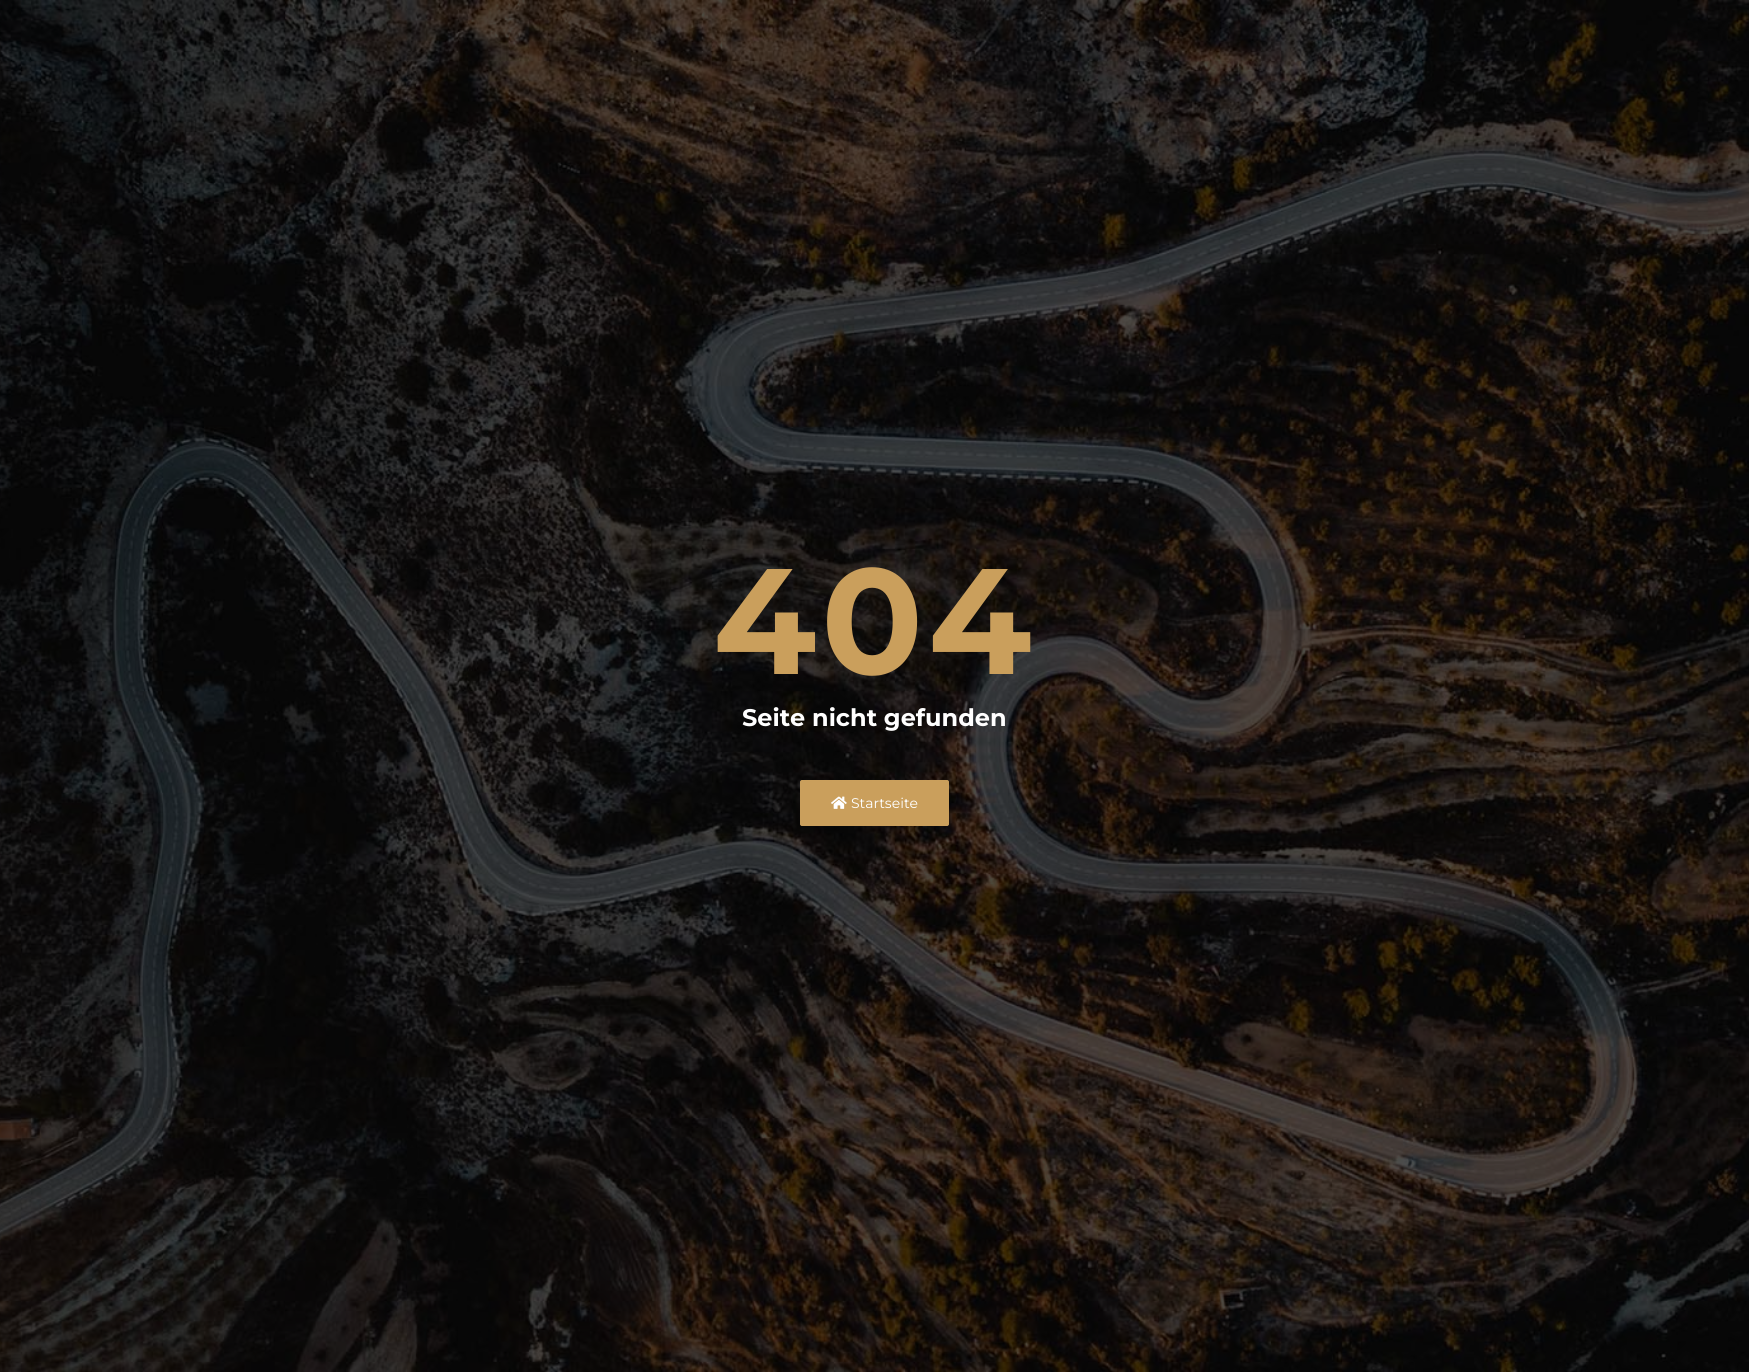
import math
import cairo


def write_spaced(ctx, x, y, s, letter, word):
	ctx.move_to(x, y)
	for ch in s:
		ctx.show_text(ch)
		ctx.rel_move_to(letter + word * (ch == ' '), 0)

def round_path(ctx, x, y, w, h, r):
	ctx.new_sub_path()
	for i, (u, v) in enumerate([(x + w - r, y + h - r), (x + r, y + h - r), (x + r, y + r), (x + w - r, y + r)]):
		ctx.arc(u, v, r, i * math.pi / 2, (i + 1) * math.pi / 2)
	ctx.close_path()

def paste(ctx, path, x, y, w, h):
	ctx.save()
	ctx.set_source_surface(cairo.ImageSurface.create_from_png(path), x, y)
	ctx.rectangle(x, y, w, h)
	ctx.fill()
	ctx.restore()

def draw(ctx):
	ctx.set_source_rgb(1, 1, 1)
	ctx.paint()
	paste(ctx, 'media/1.png', 0, 0, 1749, 1372)
	ctx.select_font_face('Montserrat', cairo.FONT_SLANT_NORMAL, cairo.FONT_WEIGHT_BOLD)
	ctx.set_font_size(150)
	ctx.set_source_rgb(0.792, 0.624, 0.361)
	write_spaced(ctx, 713, 674, '404', 5, 0)
	ctx.set_font_size(24)
	ctx.set_source_rgb(1, 1, 1)
	ctx.move_to(742, 726)
	ctx.show_text('Seite nicht gefunden')
	ctx.set_source_rgb(0.792, 0.624, 0.361)
	round_path(ctx, 800.5, 780.5, 148, 45, 1.5)
	ctx.fill_preserve()
	ctx.set_line_width(1)
	ctx.stroke()
	paste(ctx, 'media/2.png', 831, 796, 16, 13)
	ctx.select_font_face('Montserrat')
	ctx.set_font_size(14)
	ctx.set_source_rgb(1, 1, 1)
	ctx.move_to(851, 808)
	ctx.show_text('Startseite')


surface = cairo.ImageSurface(cairo.FORMAT_RGB24, 1749, 1372)
ctx = cairo.Context(surface)
options = cairo.FontOptions()
options.set_hint_metrics(cairo.HINT_METRICS_OFF)
options.set_hint_style(cairo.HINT_STYLE_NONE)
ctx.set_font_options(options)
ctx.set_miter_limit(4)
draw(ctx)
surface.write_to_png('image.png')
